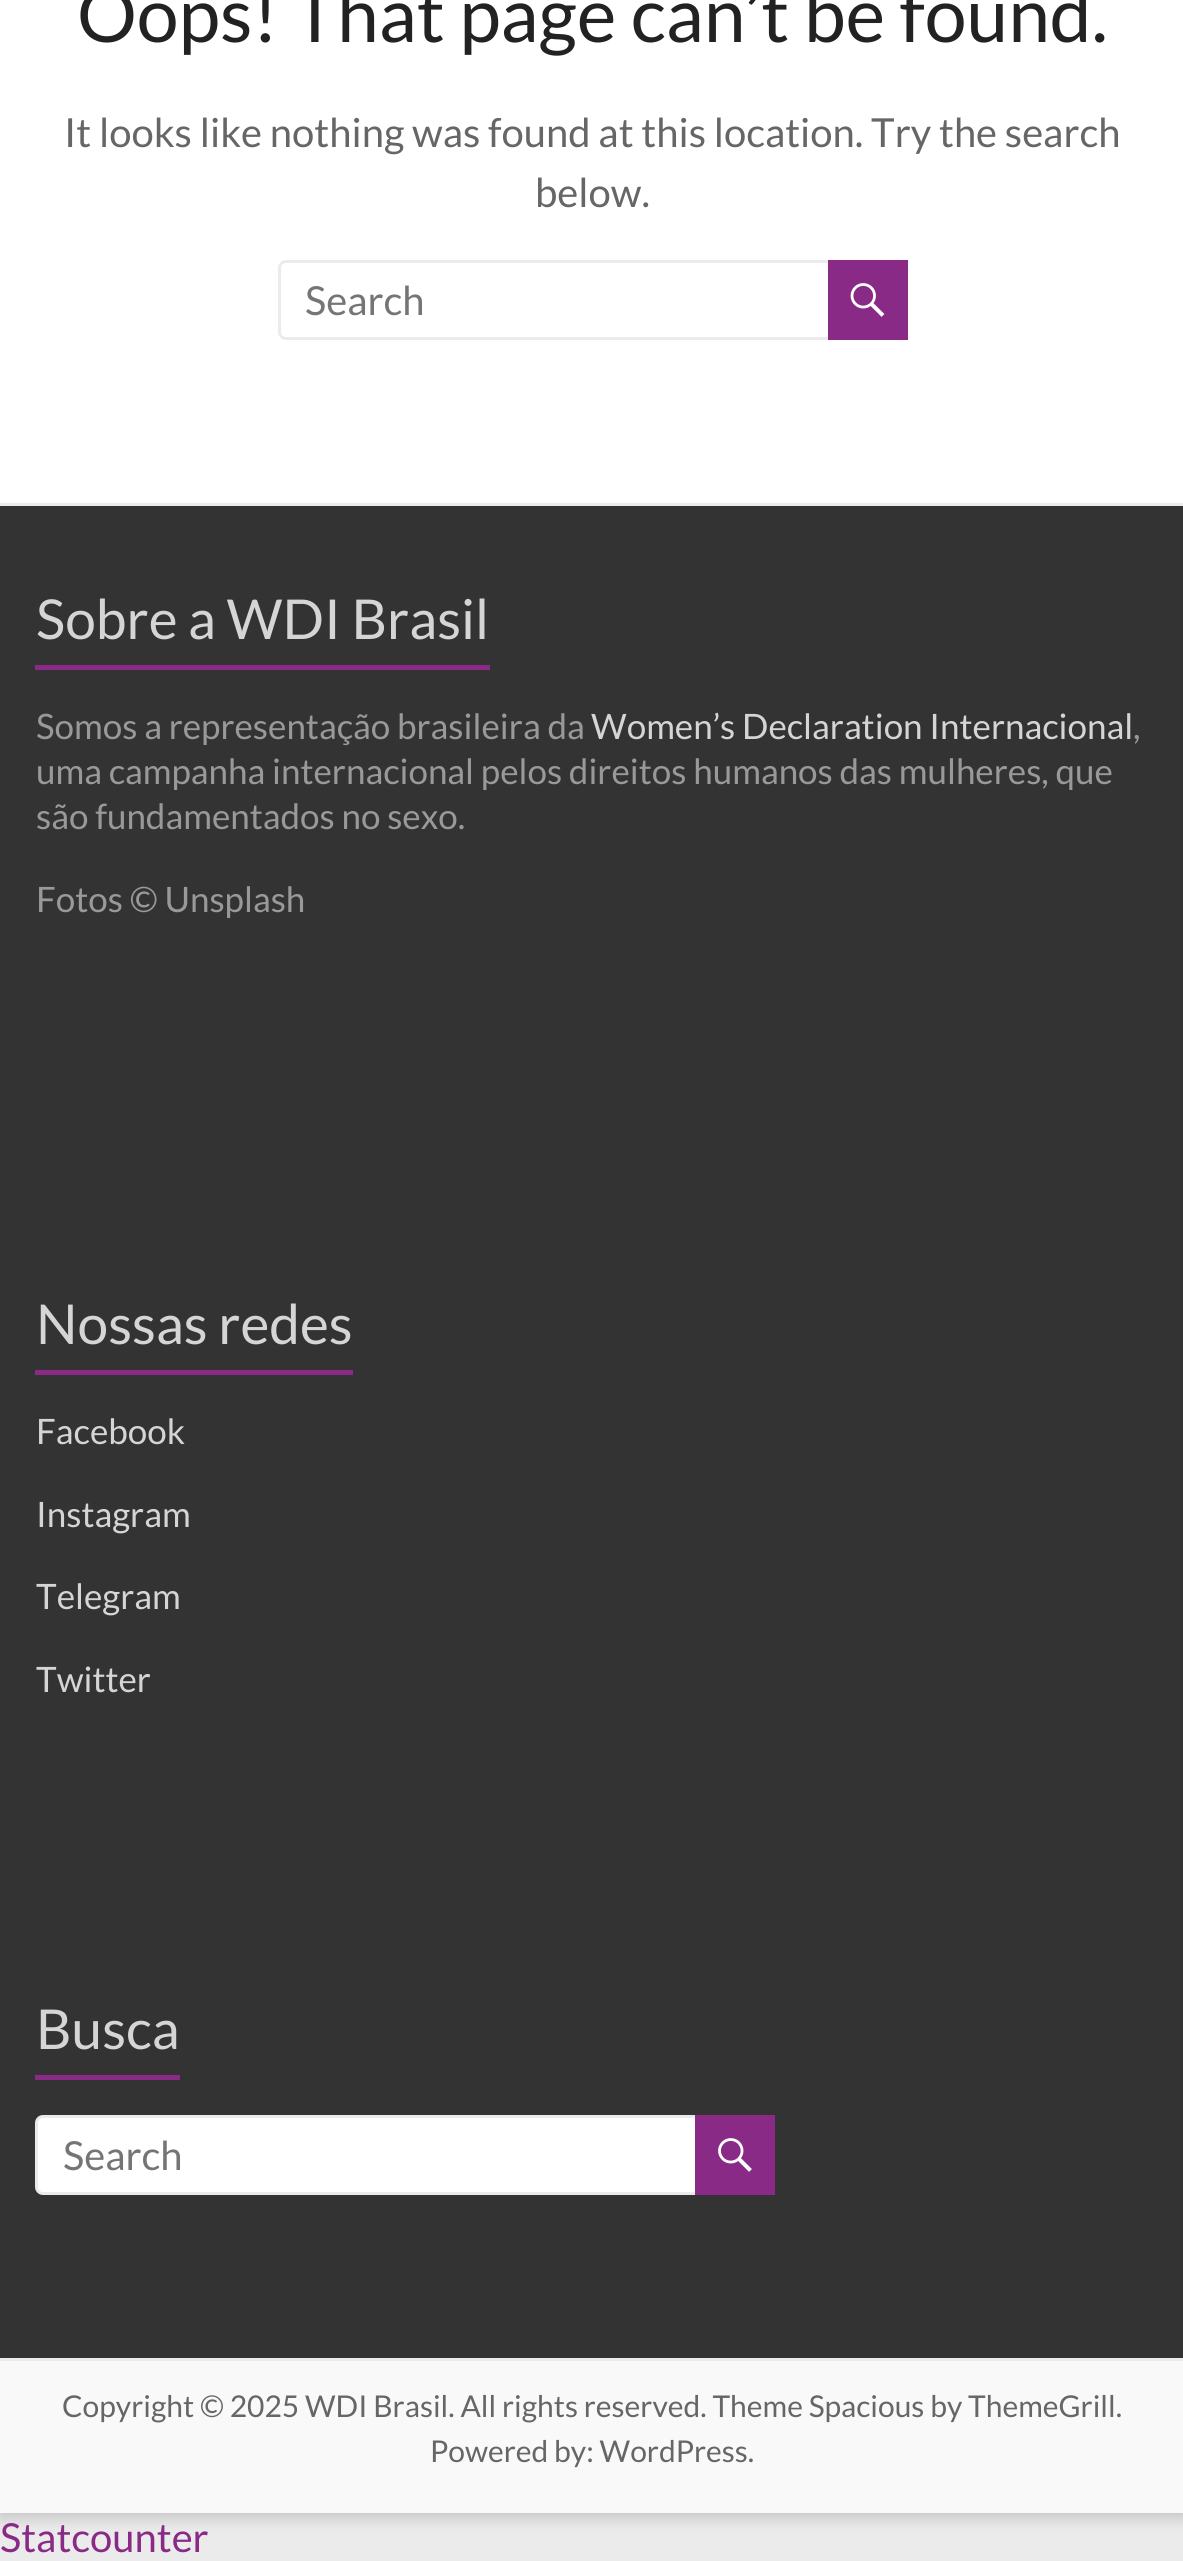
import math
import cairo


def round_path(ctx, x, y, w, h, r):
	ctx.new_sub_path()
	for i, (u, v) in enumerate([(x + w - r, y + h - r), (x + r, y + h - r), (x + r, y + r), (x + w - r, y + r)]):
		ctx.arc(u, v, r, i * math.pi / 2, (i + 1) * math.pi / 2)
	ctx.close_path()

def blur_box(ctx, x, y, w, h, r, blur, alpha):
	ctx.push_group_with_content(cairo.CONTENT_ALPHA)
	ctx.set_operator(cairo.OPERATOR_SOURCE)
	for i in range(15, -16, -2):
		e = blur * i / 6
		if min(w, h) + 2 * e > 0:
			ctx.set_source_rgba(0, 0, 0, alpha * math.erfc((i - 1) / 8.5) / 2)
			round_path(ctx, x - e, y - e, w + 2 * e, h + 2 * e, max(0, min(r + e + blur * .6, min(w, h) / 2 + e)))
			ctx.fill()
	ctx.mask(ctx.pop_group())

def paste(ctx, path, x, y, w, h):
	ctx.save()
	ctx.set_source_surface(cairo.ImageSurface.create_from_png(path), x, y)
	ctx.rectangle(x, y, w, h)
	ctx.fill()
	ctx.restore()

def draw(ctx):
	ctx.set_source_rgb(0.918, 0.918, 0.918)
	ctx.paint()
	ctx.set_source_rgb(0.392, 0.392, 0.392)
	blur_box(ctx, 0, -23, 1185, 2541, 0, 7.5, 0.3)
	ctx.set_source_rgb(1, 1, 1)
	ctx.rectangle(0, 0, 1183, 503)
	ctx.fill()
	ctx.select_font_face('Lato')
	ctx.set_font_size(75)
	ctx.set_source_rgb(0.133, 0.133, 0.133)
	ctx.move_to(77, 42)
	ctx.show_text('Oops! That page can’t be found.')
	ctx.set_font_size(40)
	ctx.set_source_rgb(0.4, 0.4, 0.4)
	ctx.move_to(64, 147)
	ctx.show_text('It looks like nothing was found at this location. Try the search')
	ctx.move_to(535, 207)
	ctx.show_text('below.')
	round_path(ctx, 279.5, 261.5, 554, 77, 6.5)
	ctx.set_source_rgb(0.918, 0.918, 0.918)
	ctx.set_line_width(3)
	ctx.stroke()
	ctx.set_source_rgb(0.459, 0.459, 0.459)
	ctx.move_to(305, 315)
	ctx.show_text('Search')
	ctx.set_source_rgb(0.533, 0.165, 0.525)
	ctx.rectangle(828, 260, 80, 80)
	ctx.fill()
	paste(ctx, 'media/1.png', 850, 283, 35, 34)
	ctx.set_source_rgb(0.2, 0.2, 0.2)
	ctx.rectangle(0, 506, 1183, 1852)
	ctx.fill()
	ctx.set_source_rgb(0.918, 0.918, 0.918)
	ctx.rectangle(0, 503, 1183, 3)
	ctx.fill()
	ctx.set_font_size(55)
	ctx.set_source_rgb(0.835, 0.835, 0.835)
	ctx.move_to(36, 639)
	ctx.show_text('Sobre a WDI Brasil')
	ctx.set_source_rgb(0.533, 0.165, 0.525)
	ctx.rectangle(35, 665, 455, 5)
	ctx.fill()
	ctx.set_font_size(35)
	ctx.set_source_rgb(0.6, 0.6, 0.6)
	ctx.move_to(36, 739)
	ctx.show_text('Somos a representação brasileira da')
	ctx.set_source_rgb(0.835, 0.835, 0.835)
	ctx.move_to(591, 739)
	ctx.show_text('Women’s Declaration Internacional')
	ctx.set_source_rgb(0.6, 0.6, 0.6)
	for x, y, s in [
		(1133, 739, ','),
		(36, 784, 'uma campanha internacional pelos direitos humanos das mulheres, que'),
		(36, 829, 'são fundamentados no sexo.'),
		(36, 912, 'Fotos © Unsplash'),
	]:
		ctx.move_to(x, y)
		ctx.show_text(s)
	ctx.set_font_size(55)
	ctx.set_source_rgb(0.835, 0.835, 0.835)
	ctx.move_to(36, 1344)
	ctx.show_text('Nossas redes')
	ctx.set_source_rgb(0.533, 0.165, 0.525)
	ctx.rectangle(35, 1370, 318, 5)
	ctx.fill()
	ctx.set_font_size(35)
	ctx.set_source_rgb(0.835, 0.835, 0.835)
	for x, y, s in [
		(36, 1444, 'Facebook'),
		(36, 1527, 'Instagram'),
		(36, 1609, 'Telegram'),
		(36, 1692, 'Twitter'),
	]:
		ctx.move_to(x, y)
		ctx.show_text(s)
	ctx.set_font_size(55)
	ctx.move_to(36, 2049)
	ctx.show_text('Busca')
	ctx.set_source_rgb(0.533, 0.165, 0.525)
	ctx.rectangle(35, 2075, 145, 5)
	ctx.fill()
	ctx.set_source_rgb(1, 1, 1)
	round_path(ctx, 36.5, 2116.5, 667, 77, 6.5)
	ctx.fill_preserve()
	ctx.set_source_rgb(0.918, 0.918, 0.918)
	ctx.stroke()
	ctx.set_font_size(40)
	ctx.set_source_rgb(0.459, 0.459, 0.459)
	ctx.move_to(63, 2170)
	ctx.show_text('Search')
	ctx.set_source_rgb(0.533, 0.165, 0.525)
	ctx.rectangle(695, 2115, 80, 80)
	ctx.fill()
	paste(ctx, 'media/2.png', 718, 2138, 34, 34)
	ctx.set_source_rgb(0.973, 0.973, 0.973)
	ctx.rectangle(0, 2361, 1183, 152)
	ctx.fill()
	ctx.set_source_rgb(0.918, 0.918, 0.918)
	ctx.rectangle(0, 2358, 1183, 3)
	ctx.fill()
	ctx.set_font_size(30)
	ctx.set_source_rgb(0.4, 0.4, 0.4)
	ctx.move_to(62, 2417)
	ctx.show_text('Copyright © 2025 WDI Brasil. All rights reserved. Theme Spacious by ThemeGrill.')
	ctx.move_to(430, 2462)
	ctx.show_text('Powered by: WordPress.')
	ctx.set_font_size(40)
	ctx.set_source_rgb(0.533, 0.165, 0.525)
	ctx.move_to(0, 2552)
	ctx.show_text('Statcounter')


surface = cairo.ImageSurface(cairo.FORMAT_RGB24, 1183, 2561)
ctx = cairo.Context(surface)
options = cairo.FontOptions()
options.set_hint_metrics(cairo.HINT_METRICS_OFF)
options.set_hint_style(cairo.HINT_STYLE_NONE)
ctx.set_font_options(options)
ctx.set_miter_limit(4)
draw(ctx)
surface.write_to_png('image.png')
